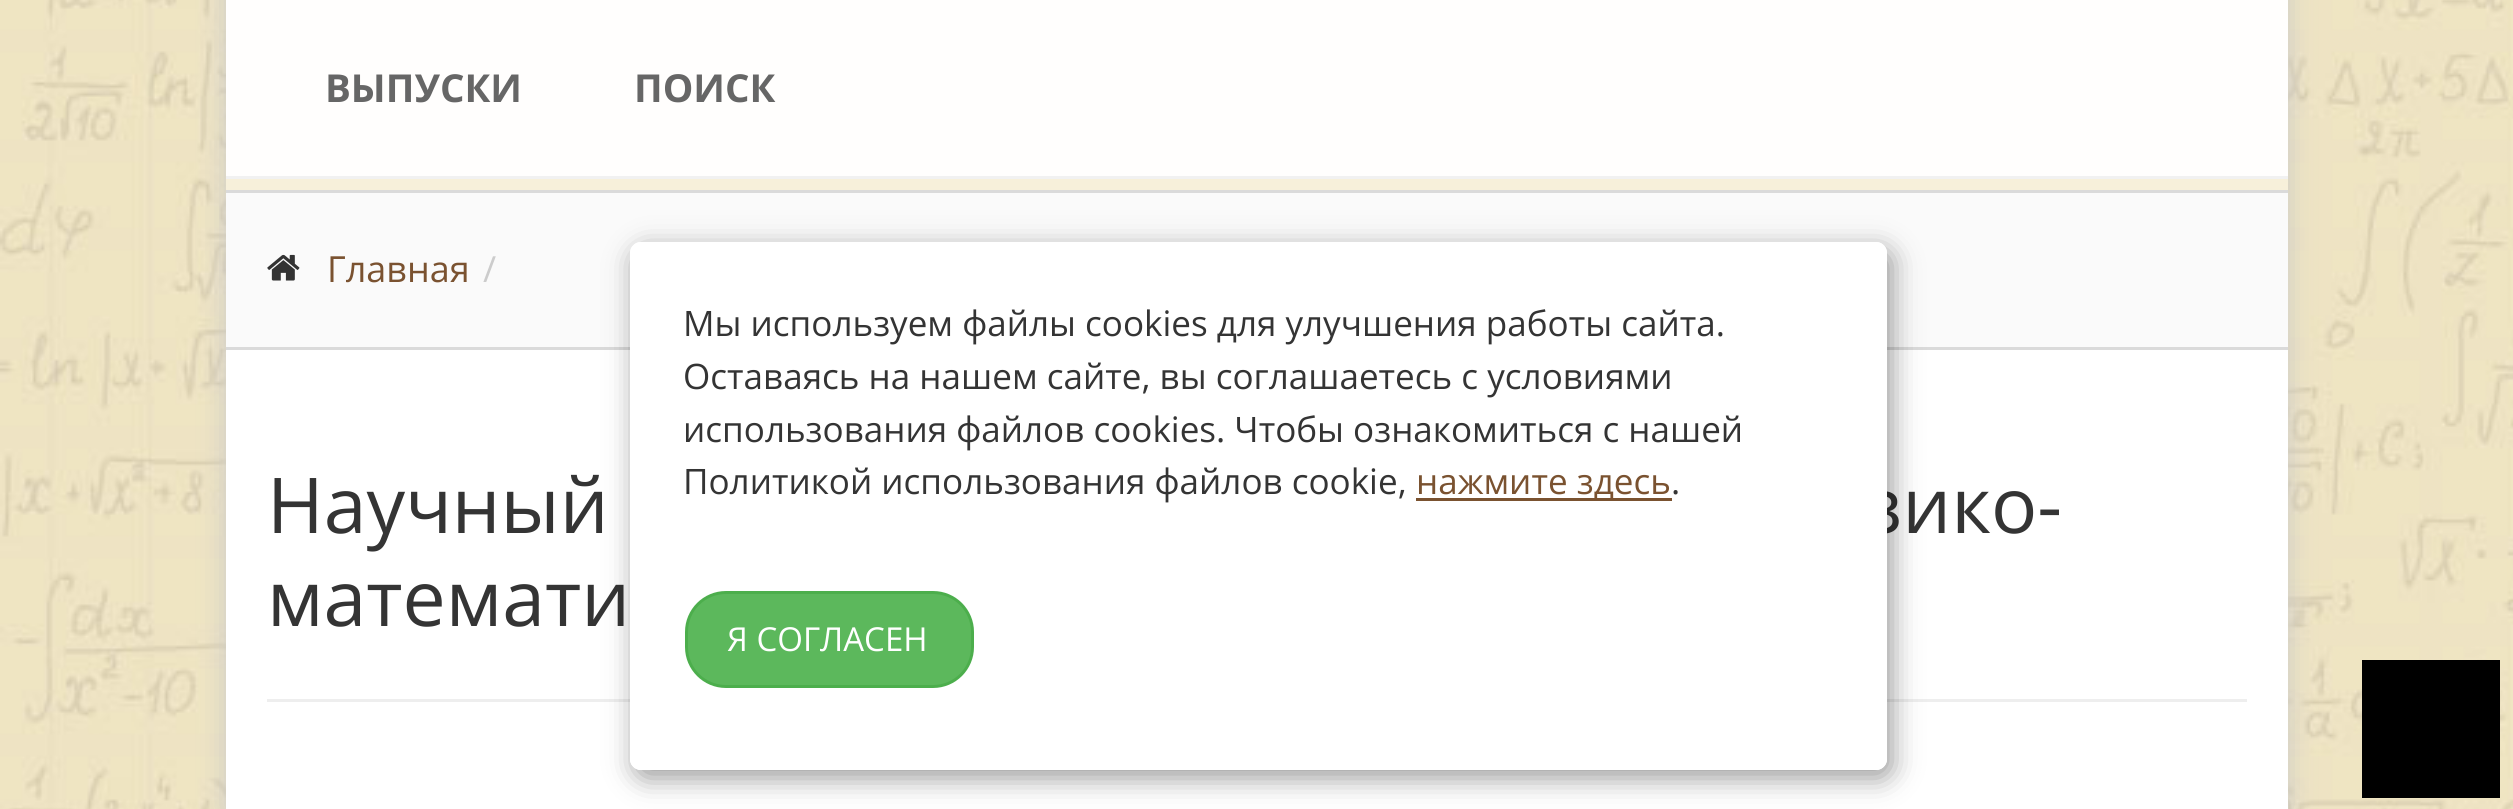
import math
import cairo


def round_path(ctx, x, y, w, h, r):
	ctx.new_sub_path()
	for i, (u, v) in enumerate([(x + w - r, y + h - r), (x + r, y + h - r), (x + r, y + r), (x + w - r, y + r)]):
		ctx.arc(u, v, r, i * math.pi / 2, (i + 1) * math.pi / 2)
	ctx.close_path()

def blur_box(ctx, x, y, w, h, r, blur, alpha):
	ctx.push_group_with_content(cairo.CONTENT_ALPHA)
	ctx.set_operator(cairo.OPERATOR_SOURCE)
	for i in range(15, -16, -2):
		e = blur * i / 6
		if min(w, h) + 2 * e > 0:
			ctx.set_source_rgba(0, 0, 0, alpha * math.erfc((i - 1) / 8.5) / 2)
			round_path(ctx, x - e, y - e, w + 2 * e, h + 2 * e, max(0, min(r + e + blur * .6, min(w, h) / 2 + e)))
			ctx.fill()
	ctx.mask(ctx.pop_group())

def paste(ctx, path, x, y, w, h):
	ctx.save()
	ctx.set_source_surface(cairo.ImageSurface.create_from_png(path), x, y)
	ctx.rectangle(x, y, w, h)
	ctx.fill()
	ctx.restore()

def draw(ctx):
	ctx.set_source_rgb(1, 1, 1)
	ctx.paint()
	paste(ctx, 'media/1.png', 0, 0, 2513, 809)
	ctx.set_source_rgb(0.792, 0.792, 0.792)
	blur_box(ctx, 226, -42, 2062, 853, 0, 14, 1)
	ctx.set_source_rgb(1, 1, 1)
	ctx.rectangle(226, 350, 2062, 459)
	ctx.fill()
	ctx.set_source_rgb(0.965, 0.941, 0.855)
	ctx.rectangle(226, 0, 2062, 190)
	ctx.fill()
	ctx.set_source_rgb(0.855, 0.855, 0.855)
	ctx.rectangle(226, 190, 2062, 3)
	ctx.fill()
	ctx.set_source_rgba(1, 1, 1, 0.95)
	ctx.rectangle(226, 0, 2062, 176)
	ctx.fill()
	ctx.set_source_rgb(0.945, 0.945, 0.945)
	ctx.rectangle(226, 176, 2062, 3)
	ctx.fill()
	ctx.select_font_face('Open Sans', cairo.FONT_SLANT_NORMAL, cairo.FONT_WEIGHT_BOLD)
	ctx.set_font_size(38.5)
	ctx.set_source_rgb(0.4, 0.4, 0.4)
	ctx.move_to(325, 102)
	ctx.show_text('ВЫПУСКИ')
	ctx.move_to(634, 102)
	ctx.show_text('ПОИСК')
	ctx.set_source_rgb(0.98, 0.98, 0.98)
	ctx.rectangle(226, 193, 2062, 154)
	ctx.fill()
	ctx.set_source_rgb(0.855, 0.855, 0.855)
	ctx.rectangle(226, 347, 2062, 3)
	ctx.fill()
	paste(ctx, 'media/2.png', 267, 254, 33, 27)
	ctx.select_font_face('Open Sans')
	ctx.set_font_size(36)
	ctx.set_source_rgb(0.478, 0.322, 0.188)
	ctx.move_to(327, 282)
	ctx.show_text('Главная')
	ctx.set_source_rgb(0.8, 0.8, 0.8)
	ctx.move_to(483, 282)
	ctx.show_text('/')
	ctx.set_font_size(77)
	ctx.set_source_rgb(0.204, 0.204, 0.204)
	for x, y, s in [
		(267, 533, 'Научный'),
		(1865, 533, 'зико-'),
		(267, 626, 'математи'),
	]:
		ctx.move_to(x, y)
		ctx.show_text(s)
	ctx.set_source_rgb(0.933, 0.933, 0.933)
	ctx.rectangle(267, 699, 1980, 3)
	ctx.fill()
	ctx.save()
	ctx.set_fill_rule(cairo.FILL_RULE_EVEN_ODD)
	ctx.new_path()
	ctx.move_to(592, 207)
	ctx.line_to(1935, 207)
	ctx.line_to(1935, 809)
	ctx.line_to(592, 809)
	ctx.close_path()
	ctx.move_to(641, 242)
	ctx.line_to(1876, 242)
	ctx.curve_to(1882, 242, 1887, 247, 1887, 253)
	ctx.line_to(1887, 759)
	ctx.curve_to(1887, 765, 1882, 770, 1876, 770)
	ctx.line_to(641, 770)
	ctx.curve_to(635, 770, 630, 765, 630, 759)
	ctx.line_to(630, 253)
	ctx.curve_to(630, 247, 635, 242, 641, 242)
	ctx.close_path()
	ctx.clip()
	ctx.set_source_rgb(0, 0, 0)
	blur_box(ctx, 635, 250, 1257, 528, 11, 14, 0.4)
	ctx.restore()
	ctx.set_source_rgb(1, 1, 1)
	round_path(ctx, 630, 242, 1257, 528, 11)
	ctx.fill()
	ctx.set_font_size(35.05)
	ctx.set_source_rgb(0.204, 0.204, 0.204)
	for x, y, s in [
		(683, 336, 'Мы используем файлы cookies для улучшения работы сайта.'),
		(683, 389, 'Оставаясь на нашем сайте, вы соглашаетесь с условиями'),
		(683, 442, 'использования файлов cookies. Чтобы ознакомиться с нашей'),
		(683, 494, 'Политикой использования файлов cookie,'),
	]:
		ctx.move_to(x, y)
		ctx.show_text(s)
	ctx.set_source_rgb(0.478, 0.322, 0.188)
	ctx.rectangle(1416, 498, 256, 3)
	ctx.fill()
	ctx.move_to(1416, 494)
	ctx.show_text('нажмите здесь')
	ctx.set_source_rgb(0.204, 0.204, 0.204)
	ctx.move_to(1671, 494)
	ctx.show_text('.')
	ctx.set_source_rgb(0.361, 0.722, 0.361)
	round_path(ctx, 686.5, 592.5, 286, 94, 39.5)
	ctx.fill_preserve()
	ctx.set_source_rgb(0.298, 0.682, 0.298)
	ctx.set_line_width(3)
	ctx.stroke()
	ctx.set_font_size(33)
	ctx.set_source_rgb(1, 1, 1)
	ctx.move_to(727, 651)
	ctx.show_text('Я СОГЛАСЕН')
	ctx.set_source_rgb(0, 0, 0)
	ctx.rectangle(2362, 660, 138, 138)
	ctx.fill()


surface = cairo.ImageSurface(cairo.FORMAT_RGB24, 2513, 809)
ctx = cairo.Context(surface)
options = cairo.FontOptions()
options.set_hint_metrics(cairo.HINT_METRICS_OFF)
options.set_hint_style(cairo.HINT_STYLE_NONE)
ctx.set_font_options(options)
ctx.set_miter_limit(4)
draw(ctx)
surface.write_to_png('image.png')
